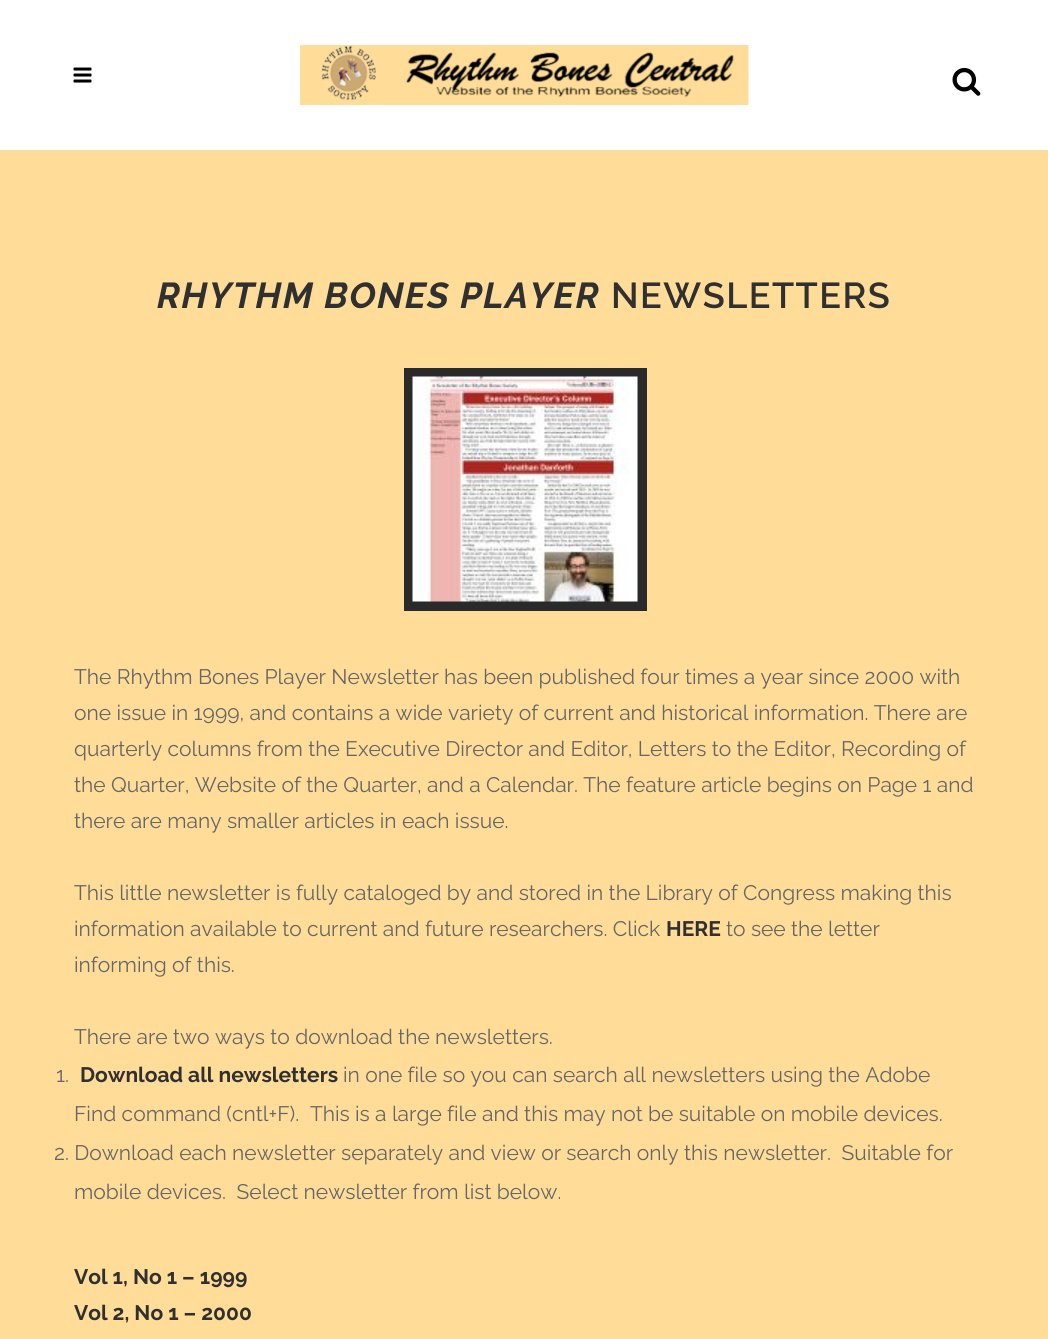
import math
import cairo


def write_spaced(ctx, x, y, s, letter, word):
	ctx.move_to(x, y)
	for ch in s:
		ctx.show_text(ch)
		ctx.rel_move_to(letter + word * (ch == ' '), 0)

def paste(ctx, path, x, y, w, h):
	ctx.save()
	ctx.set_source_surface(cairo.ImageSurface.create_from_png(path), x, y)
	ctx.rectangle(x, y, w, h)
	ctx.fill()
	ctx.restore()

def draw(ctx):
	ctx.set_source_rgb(1, 0.867, 0.6)
	ctx.paint()
	ctx.set_source_rgb(1, 1, 1)
	ctx.rectangle(0, 0, 1048, 150)
	ctx.fill()
	paste(ctx, 'media/1.png', 73, 67, 19, 16)
	paste(ctx, 'media/2.png', 300, 45, 449, 60)
	paste(ctx, 'media/3.png', 952, 67, 29, 29)
	ctx.select_font_face('Raleway', cairo.FONT_SLANT_ITALIC, cairo.FONT_WEIGHT_BOLD)
	ctx.set_font_size(36)
	ctx.set_source_rgb(0.188, 0.188, 0.188)
	write_spaced(ctx, 157, 308, 'RHYTHM BONES PLAYER', 1.5, 0)
	ctx.select_font_face('Raleway SemiBold')
	write_spaced(ctx, 611, 308, 'NEWSLETTERS', 1.5, 0)
	ctx.set_source_rgb(0.165, 0.165, 0.165)
	ctx.rectangle(404, 368, 243, 243)
	ctx.fill()
	paste(ctx, 'media/4.png', 412, 376, 226, 226)
	ctx.select_font_face('Raleway')
	ctx.set_font_size(21)
	ctx.set_source_rgb(0.4, 0.4, 0.4)
	for x, y, s in [
		(74, 684, 'The Rhythm Bones Player Newsletter has been published four times a year since 2000 with'),
		(74, 720, 'one issue in 1999, and contains a wide variety of current and historical information. There are'),
		(74, 756, 'quarterly columns from the Executive Director and Editor, Letters to the Editor, Recording of'),
		(74, 792, 'the Quarter, Website of the Quarter, and a Calendar. The feature article begins on Page 1 and'),
		(74, 828, 'there are many smaller articles in each issue.'),
		(74, 900, 'This little newsletter is fully cataloged by and stored in the Library of Congress making this'),
		(74, 936, 'information available to current and future researchers. Click'),
	]:
		ctx.move_to(x, y)
		ctx.show_text(s)
	ctx.select_font_face('Raleway', cairo.FONT_SLANT_NORMAL, cairo.FONT_WEIGHT_BOLD)
	ctx.set_source_rgb(0.188, 0.188, 0.188)
	ctx.move_to(666, 936)
	ctx.show_text('HERE')
	ctx.select_font_face('Raleway')
	ctx.set_source_rgb(0.4, 0.4, 0.4)
	for x, y, s in [
		(726, 936, 'to see the letter'),
		(74, 972, 'informing of this.'),
		(74, 1044, 'There are two ways to download the newsletters.'),
		(56, 1082, '1.'),
	]:
		ctx.move_to(x, y)
		ctx.show_text(s)
	ctx.select_font_face('Raleway', cairo.FONT_SLANT_NORMAL, cairo.FONT_WEIGHT_BOLD)
	ctx.set_source_rgb(0.188, 0.188, 0.188)
	ctx.move_to(80, 1082)
	ctx.show_text('Download all newsletters')
	ctx.select_font_face('Raleway')
	ctx.set_source_rgb(0.4, 0.4, 0.4)
	for x, y, s in [
		(343, 1082, 'in one file so you can search all newsletters using the Adobe'),
		(74, 1121, 'Find command (cntl+F).  This is a large file and this may not be suitable on mobile devices.'),
		(54, 1160, '2. Download each newsletter separately and view or search only this newsletter.  Suitable for'),
		(74, 1199, 'mobile devices.  Select newsletter from list below.'),
	]:
		ctx.move_to(x, y)
		ctx.show_text(s)
	ctx.select_font_face('Raleway', cairo.FONT_SLANT_NORMAL, cairo.FONT_WEIGHT_BOLD)
	ctx.set_source_rgb(0.188, 0.188, 0.188)
	ctx.move_to(74, 1284)
	ctx.show_text('Vol 1, No 1 – 1999')
	ctx.move_to(74, 1320)
	ctx.show_text('Vol 2, No 1 – 2000')


surface = cairo.ImageSurface(cairo.FORMAT_RGB24, 1048, 1339)
ctx = cairo.Context(surface)
options = cairo.FontOptions()
options.set_hint_metrics(cairo.HINT_METRICS_OFF)
options.set_hint_style(cairo.HINT_STYLE_NONE)
ctx.set_font_options(options)
ctx.set_miter_limit(4)
draw(ctx)
surface.write_to_png('image.png')
